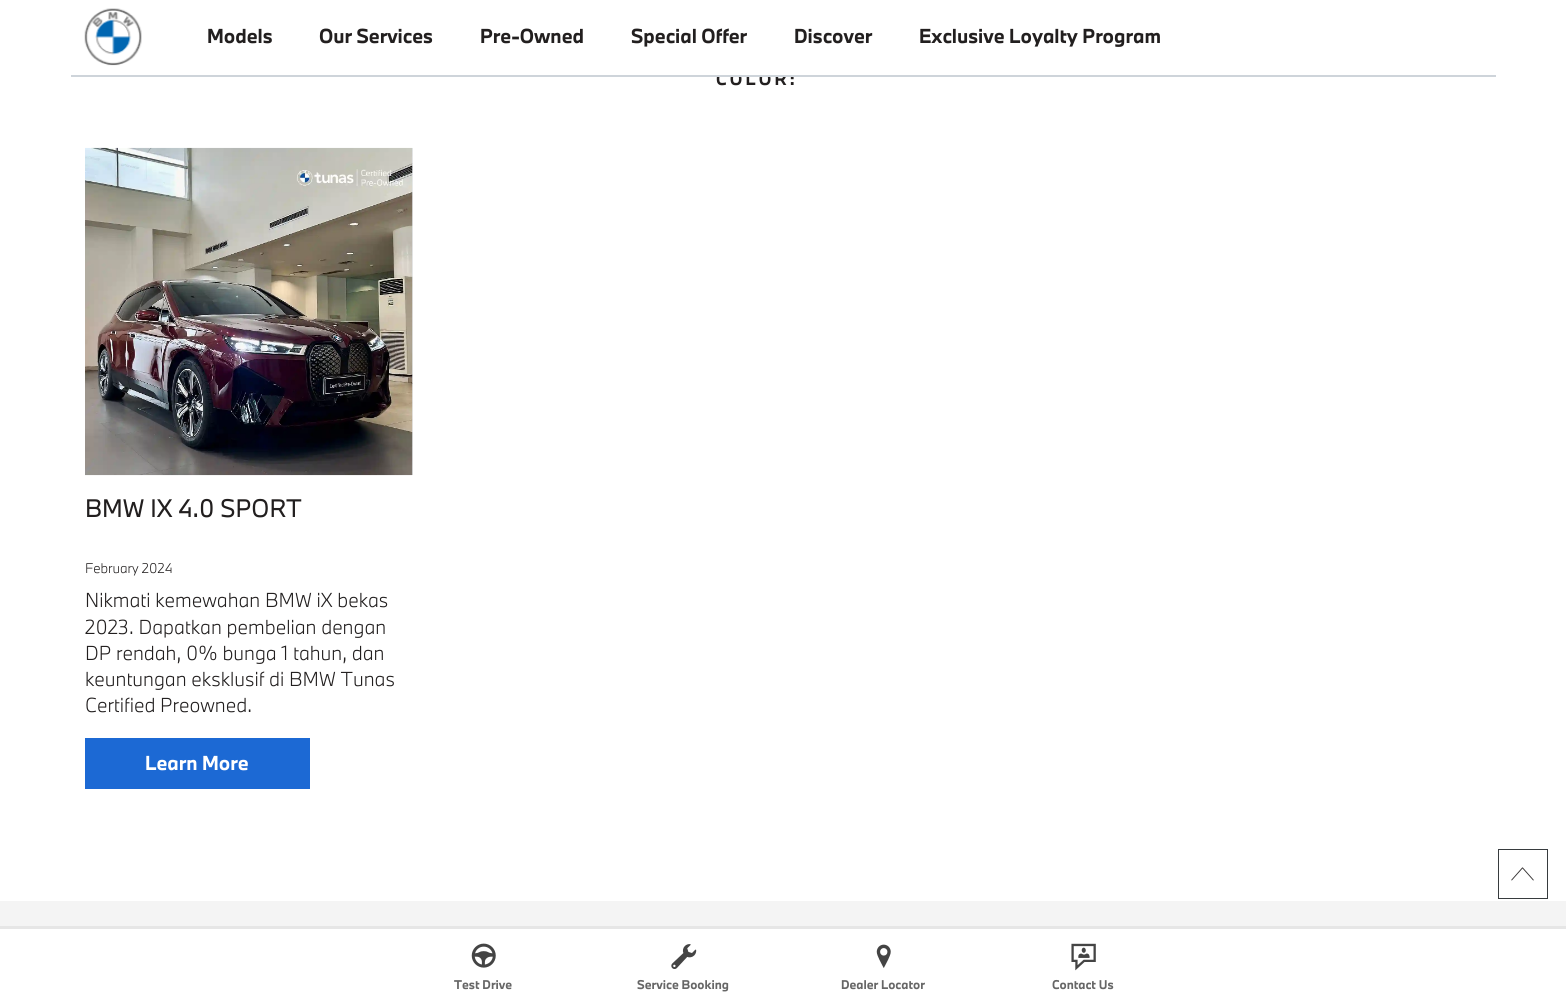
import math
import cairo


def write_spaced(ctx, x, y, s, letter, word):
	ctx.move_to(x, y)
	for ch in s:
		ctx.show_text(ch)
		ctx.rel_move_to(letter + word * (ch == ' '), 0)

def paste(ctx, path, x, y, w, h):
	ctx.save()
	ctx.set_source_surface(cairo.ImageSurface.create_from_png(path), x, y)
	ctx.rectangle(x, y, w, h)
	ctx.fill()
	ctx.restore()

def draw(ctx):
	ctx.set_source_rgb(1, 1, 1)
	ctx.paint()
	ctx.select_font_face('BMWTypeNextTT', cairo.FONT_SLANT_NORMAL, cairo.FONT_WEIGHT_BOLD)
	ctx.set_font_size(16.5)
	ctx.set_source_rgb(0.133, 0.122, 0.122)
	write_spaced(ctx, 716, 85, 'COLOR:', 3.25, 0)
	ctx.set_source_rgb(1, 1, 1)
	ctx.rectangle(717, 72, 69, 4)
	ctx.fill()
	ctx.set_source_rgb(0.808, 0.831, 0.855)
	ctx.rectangle(71, 75, 1425, 1)
	ctx.fill()
	paste(ctx, 'media/1.png', 84, 8, 58, 58)
	ctx.set_font_size(18.75)
	ctx.set_source_rgb(0.133, 0.122, 0.122)
	for x, y, s in [
		(207, 43, 'Models'),
		(319, 43, 'Our Services'),
		(480, 43, 'Pre-Owned'),
		(631, 43, 'Special Offer'),
		(794, 43, 'Discover'),
		(919, 43, 'Exclusive Loyalty Program'),
	]:
		ctx.move_to(x, y)
		ctx.show_text(s)
	ctx.set_source_rgb(0.808, 0.831, 0.855)
	ctx.rectangle(71, 76, 1425, 1)
	ctx.fill()
	ctx.set_source_rgb(0.914, 0.925, 0.937)
	ctx.rectangle(412, 148, 1, 327)
	ctx.fill()
	paste(ctx, 'media/2.png', 85, 147, 328, 329)
	ctx.select_font_face('BMWTypeNextTT')
	ctx.set_font_size(23.5)
	ctx.set_source_rgb(0.133, 0.122, 0.122)
	ctx.move_to(85, 517)
	ctx.show_text('BMW IX 4.0 SPORT')
	ctx.select_font_face('BMWTypeNextTT Light')
	ctx.set_font_size(13)
	ctx.move_to(85, 573)
	ctx.show_text('February 2024')
	ctx.set_font_size(18.75)
	for x, y, s in [
		(85, 607, 'Nikmati kemewahan BMW iX bekas'),
		(85, 634, '2023. Dapatkan pembelian dengan'),
		(85, 660, 'DP rendah, 0% bunga 1 tahun, dan'),
		(85, 686, 'keuntungan eksklusif di BMW Tunas'),
		(85, 712, 'Certified Preowned.'),
	]:
		ctx.move_to(x, y)
		ctx.show_text(s)
	ctx.set_source_rgb(0.11, 0.412, 0.831)
	ctx.rectangle(85, 738, 225, 51)
	ctx.fill()
	ctx.select_font_face('BMWTypeNextTT', cairo.FONT_SLANT_NORMAL, cairo.FONT_WEIGHT_BOLD)
	ctx.set_source_rgb(1, 1, 1)
	ctx.move_to(145, 770)
	ctx.show_text('Learn More')
	ctx.rectangle(1498.5, 849.5, 49, 49)
	ctx.set_source_rgb(0.216, 0.231, 0.243)
	ctx.set_line_width(1)
	ctx.stroke()
	paste(ctx, 'media/3.png', 1511, 867, 23, 14)
	ctx.set_source_rgb(0.957, 0.957, 0.957)
	ctx.rectangle(0, 901, 1566, 25)
	ctx.fill()
	ctx.set_source_rgb(0.902, 0.902, 0.902)
	ctx.rectangle(0, 926, 1566, 3)
	ctx.fill()
	paste(ctx, 'media/4.png', 471, 943, 25, 25)
	ctx.set_font_size(11.75)
	ctx.set_source_rgb(0.4, 0.4, 0.4)
	ctx.move_to(454, 989)
	ctx.show_text('Test Drive')
	paste(ctx, 'media/5.png', 671, 944, 26, 25)
	ctx.move_to(637, 989)
	ctx.show_text('Service Booking')
	paste(ctx, 'media/6.png', 876, 944, 15, 24)
	ctx.move_to(841, 989)
	ctx.show_text('Dealer Locator')
	paste(ctx, 'media/7.png', 1071, 943, 25, 28)
	ctx.move_to(1052, 989)
	ctx.show_text('Contact Us')


surface = cairo.ImageSurface(cairo.FORMAT_RGB24, 1566, 1005)
ctx = cairo.Context(surface)
options = cairo.FontOptions()
options.set_hint_metrics(cairo.HINT_METRICS_OFF)
options.set_hint_style(cairo.HINT_STYLE_NONE)
ctx.set_font_options(options)
ctx.set_miter_limit(4)
draw(ctx)
surface.write_to_png('image.png')
